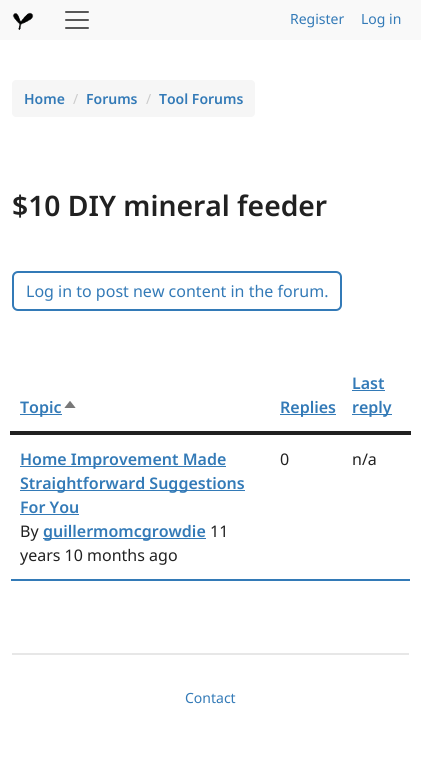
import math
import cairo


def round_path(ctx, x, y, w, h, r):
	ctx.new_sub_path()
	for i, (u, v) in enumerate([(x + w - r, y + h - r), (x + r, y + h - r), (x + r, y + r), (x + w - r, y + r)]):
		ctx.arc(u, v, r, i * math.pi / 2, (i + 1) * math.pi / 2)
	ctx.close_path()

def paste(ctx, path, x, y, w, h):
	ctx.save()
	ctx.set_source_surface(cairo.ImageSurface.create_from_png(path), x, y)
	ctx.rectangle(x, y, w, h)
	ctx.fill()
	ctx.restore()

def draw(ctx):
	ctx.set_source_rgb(1, 1, 1)
	ctx.paint()
	ctx.set_source_rgb(0.973, 0.973, 0.973)
	ctx.rectangle(0, 0, 421, 40)
	ctx.fill()
	paste(ctx, 'media/1.png', 12, 12, 22, 18)
	paste(ctx, 'media/2.png', 65, 11, 24, 18)
	ctx.select_font_face('Noto Sans')
	ctx.set_font_size(14)
	ctx.set_source_rgb(0.2, 0.478, 0.718)
	ctx.move_to(290, 24)
	ctx.show_text('Register')
	ctx.move_to(361, 24)
	ctx.show_text('Log in')
	ctx.set_source_rgb(0.961, 0.961, 0.961)
	round_path(ctx, 12, 80, 243, 37, 4)
	ctx.fill()
	ctx.select_font_face('Noto Sans SemiBold')
	ctx.set_source_rgb(0.2, 0.478, 0.718)
	ctx.move_to(24, 104)
	ctx.show_text('Home')
	ctx.select_font_face('Noto Sans')
	ctx.set_source_rgb(0.8, 0.8, 0.8)
	ctx.move_to(73, 104)
	ctx.show_text('/')
	ctx.select_font_face('Noto Sans SemiBold')
	ctx.set_source_rgb(0.2, 0.478, 0.718)
	ctx.move_to(86, 104)
	ctx.show_text('Forums')
	ctx.select_font_face('Noto Sans')
	ctx.set_source_rgb(0.8, 0.8, 0.8)
	ctx.move_to(146, 104)
	ctx.show_text('/')
	ctx.select_font_face('Noto Sans SemiBold')
	ctx.set_source_rgb(0.2, 0.478, 0.718)
	ctx.move_to(159, 104)
	ctx.show_text('Tool Forums')
	ctx.set_font_size(28.25)
	ctx.set_source_rgb(0.129, 0.129, 0.129)
	ctx.move_to(12, 216)
	ctx.show_text('$10 DIY mineral feeder')
	round_path(ctx, 13, 272, 328, 38, 5)
	ctx.set_source_rgb(0.2, 0.478, 0.718)
	ctx.stroke()
	ctx.select_font_face('Noto Sans')
	ctx.set_font_size(16)
	ctx.move_to(26, 297)
	ctx.show_text('Log in to post new content in the forum.')
	ctx.rectangle(20, 414, 42, 1)
	ctx.fill()
	ctx.select_font_face('Noto Sans SemiBold')
	ctx.move_to(20, 413)
	ctx.show_text('Topic')
	paste(ctx, 'media/3.png', 64, 401, 12, 7)
	ctx.rectangle(280, 414, 56, 1)
	ctx.fill()
	ctx.move_to(280, 413)
	ctx.show_text('Replies')
	ctx.move_to(352, 389)
	ctx.show_text('Last')
	ctx.rectangle(352, 390, 33, 1)
	ctx.fill()
	ctx.rectangle(352, 414, 40, 1)
	ctx.fill()
	ctx.move_to(352, 413)
	ctx.show_text('reply')
	ctx.set_source_rgb(0.129, 0.129, 0.129)
	ctx.rectangle(10, 431, 401, 4)
	ctx.fill()
	ctx.set_source_rgb(0.2, 0.478, 0.718)
	ctx.rectangle(20, 466, 206, 1)
	ctx.fill()
	ctx.move_to(20, 465)
	ctx.show_text('Home Improvement Made')
	ctx.rectangle(20, 490, 225, 1)
	ctx.fill()
	ctx.move_to(20, 489)
	ctx.show_text('Straightforward Suggestions')
	ctx.move_to(20, 513)
	ctx.show_text('For You')
	ctx.rectangle(20, 514, 59, 1)
	ctx.fill()
	ctx.select_font_face('Noto Sans')
	ctx.set_source_rgb(0.129, 0.129, 0.129)
	ctx.move_to(20, 537)
	ctx.show_text('By')
	ctx.set_source_rgb(0.2, 0.478, 0.718)
	ctx.rectangle(43, 538, 163, 1)
	ctx.fill()
	ctx.select_font_face('Noto Sans SemiBold')
	ctx.move_to(43, 537)
	ctx.show_text('guillermomcgrowdie')
	ctx.select_font_face('Noto Sans')
	ctx.set_source_rgb(0.129, 0.129, 0.129)
	for x, y, s in [
		(210, 537, '11'),
		(20, 561, 'years 10 months ago'),
		(280, 465, '0'),
	]:
		ctx.move_to(x, y)
		ctx.show_text(s)
	ctx.set_source_rgb(0.2, 0.478, 0.718)
	ctx.rectangle(11, 579, 399, 2)
	ctx.fill()
	ctx.set_source_rgb(0.129, 0.129, 0.129)
	ctx.move_to(352, 465)
	ctx.show_text('n/a')
	ctx.set_source_rgb(0.906, 0.906, 0.906)
	ctx.rectangle(12, 653, 397, 2)
	ctx.fill()
	ctx.set_font_size(14)
	ctx.set_source_rgb(0.2, 0.478, 0.718)
	ctx.move_to(185, 703)
	ctx.show_text('Contact')


surface = cairo.ImageSurface(cairo.FORMAT_RGB24, 421, 770)
ctx = cairo.Context(surface)
options = cairo.FontOptions()
options.set_hint_metrics(cairo.HINT_METRICS_OFF)
options.set_hint_style(cairo.HINT_STYLE_NONE)
ctx.set_font_options(options)
ctx.set_miter_limit(4)
draw(ctx)
surface.write_to_png('image.png')
